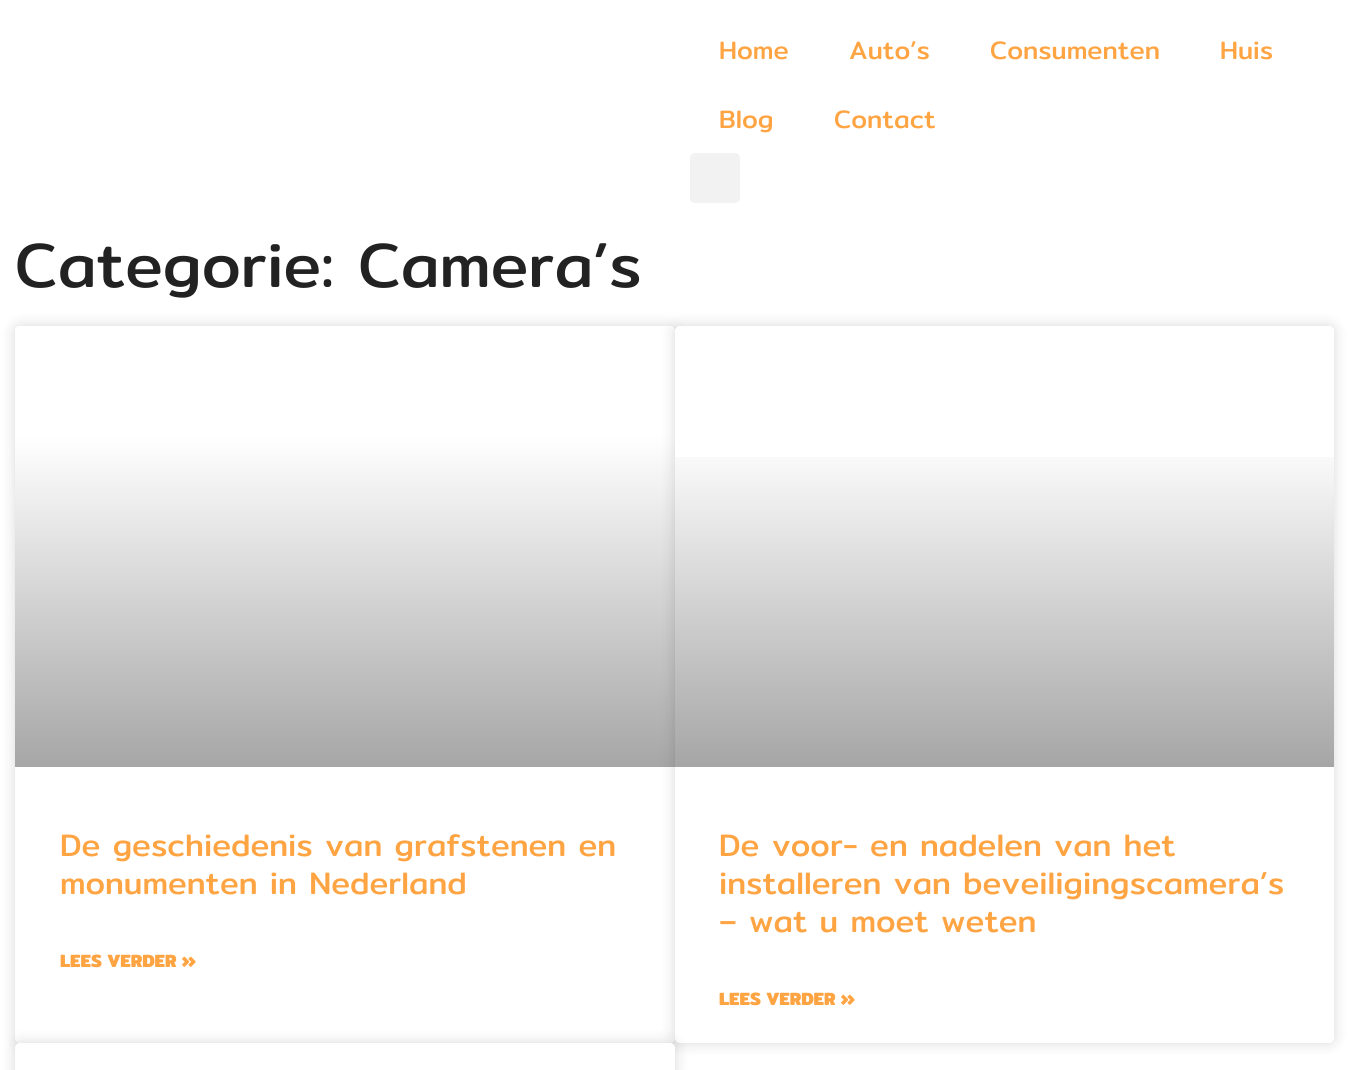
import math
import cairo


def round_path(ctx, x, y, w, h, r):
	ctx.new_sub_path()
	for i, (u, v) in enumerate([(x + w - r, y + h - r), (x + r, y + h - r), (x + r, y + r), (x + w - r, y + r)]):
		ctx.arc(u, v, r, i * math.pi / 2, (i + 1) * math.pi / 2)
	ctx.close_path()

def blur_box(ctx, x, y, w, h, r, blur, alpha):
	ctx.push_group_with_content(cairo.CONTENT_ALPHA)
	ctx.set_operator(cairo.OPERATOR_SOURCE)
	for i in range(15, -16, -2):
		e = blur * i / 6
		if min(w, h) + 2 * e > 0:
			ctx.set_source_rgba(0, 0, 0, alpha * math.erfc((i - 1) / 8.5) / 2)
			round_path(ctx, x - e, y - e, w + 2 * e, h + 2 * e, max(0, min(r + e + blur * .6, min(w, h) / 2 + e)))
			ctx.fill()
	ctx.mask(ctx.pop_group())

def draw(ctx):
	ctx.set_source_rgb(1, 1, 1)
	ctx.paint()
	ctx.select_font_face('Mitr')
	ctx.set_font_size(25.5)
	ctx.set_source_rgb(1, 0.643, 0.263)
	for x, y, s in [
		(719, 59, 'Home'),
		(849, 59, 'Auto’s'),
		(990, 59, 'Consumenten'),
		(1220, 59, 'Huis'),
		(719, 128, 'Blog'),
		(834, 128, 'Contact'),
	]:
		ctx.move_to(x, y)
		ctx.show_text(s)
	ctx.set_source_rgb(0.949, 0.949, 0.949)
	round_path(ctx, 690, 153, 50, 50, 5)
	ctx.fill()
	ctx.set_font_size(63)
	ctx.set_source_rgb(0.133, 0.133, 0.133)
	ctx.move_to(15, 287)
	ctx.show_text('Categorie: Camera’s')
	ctx.set_source_rgb(0, 0, 0)
	blur_box(ctx, 15, 326, 660, 717, 5, 7.5, 0.15)
	ctx.set_source_rgb(1, 1, 1)
	round_path(ctx, 15, 326, 660, 717, 5)
	ctx.fill()
	gradient = cairo.LinearGradient(345, 767, 345, 326)
	gradient.add_color_stop_rgba(0, 0.651, 0.651, 0.651, 1)
	gradient.add_color_stop_rgba(0.75, 1, 1, 1, 1)
	ctx.set_source(gradient)
	ctx.new_path()
	ctx.move_to(20, 326)
	ctx.line_to(670, 326)
	ctx.curve_to(673, 326, 675, 328, 675, 331)
	ctx.line_to(675, 767)
	ctx.line_to(15, 767)
	ctx.line_to(15, 331)
	ctx.curve_to(15, 328, 17, 326, 20, 326)
	ctx.close_path()
	ctx.fill()
	ctx.set_font_size(31.5)
	ctx.set_source_rgb(1, 0.643, 0.263)
	ctx.move_to(60, 856)
	ctx.show_text('De geschiedenis van grafstenen en')
	ctx.move_to(60, 894)
	ctx.show_text('monumenten in Nederland')
	ctx.select_font_face('Mitr', cairo.FONT_SLANT_NORMAL, cairo.FONT_WEIGHT_BOLD)
	ctx.set_font_size(18)
	ctx.move_to(60, 967)
	ctx.show_text('LEES VERDER »')
	ctx.set_source_rgb(0, 0, 0)
	blur_box(ctx, 675, 326, 659, 717, 5, 7.5, 0.15)
	ctx.set_source_rgb(1, 1, 1)
	round_path(ctx, 675, 326, 659, 717, 5)
	ctx.fill()
	gradient = cairo.LinearGradient(1004, 767, 1004, 326)
	gradient.add_color_stop_rgba(0, 0, 0, 0, 0.35)
	gradient.add_color_stop_rgba(0.75, 0, 0, 0, 0)
	ctx.set_source(gradient)
	ctx.rectangle(675, 457, 659, 310)
	ctx.fill()
	ctx.select_font_face('Mitr')
	ctx.set_font_size(31.5)
	ctx.set_source_rgb(1, 0.643, 0.263)
	for x, y, s in [
		(719, 856, 'De voor- en nadelen van het'),
		(719, 894, 'installeren van beveiligingscamera’s'),
		(719, 932, '– wat u moet weten'),
	]:
		ctx.move_to(x, y)
		ctx.show_text(s)
	ctx.select_font_face('Mitr', cairo.FONT_SLANT_NORMAL, cairo.FONT_WEIGHT_BOLD)
	ctx.set_font_size(18)
	ctx.move_to(719, 1005)
	ctx.show_text('LEES VERDER »')
	ctx.set_source_rgb(0, 0, 0)
	blur_box(ctx, 15, 1043, 660, 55, 5, 7.5, 0.15)
	ctx.set_source_rgb(1, 1, 1)
	round_path(ctx, 15, 1043, 660, 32, 5)
	ctx.fill()


surface = cairo.ImageSurface(cairo.FORMAT_RGB24, 1348, 1070)
ctx = cairo.Context(surface)
options = cairo.FontOptions()
options.set_hint_metrics(cairo.HINT_METRICS_OFF)
options.set_hint_style(cairo.HINT_STYLE_NONE)
ctx.set_font_options(options)
ctx.set_miter_limit(4)
draw(ctx)
surface.write_to_png('image.png')
